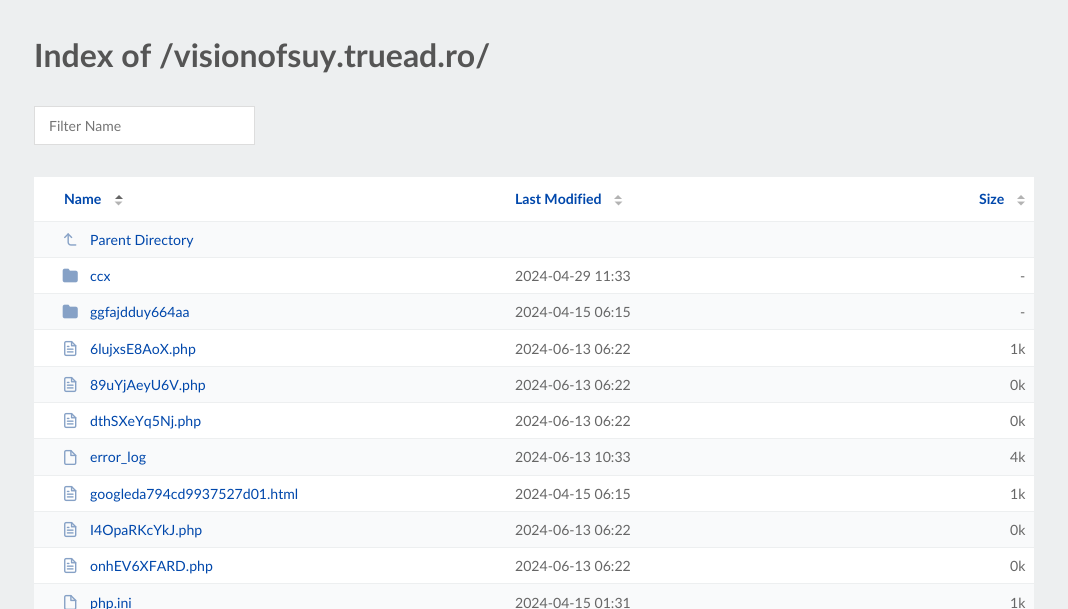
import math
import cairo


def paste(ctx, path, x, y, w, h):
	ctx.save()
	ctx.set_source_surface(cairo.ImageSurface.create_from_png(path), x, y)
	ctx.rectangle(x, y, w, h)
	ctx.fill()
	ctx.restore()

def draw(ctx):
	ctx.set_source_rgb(0.929, 0.937, 0.941)
	ctx.paint()
	ctx.select_font_face('Lato', cairo.FONT_SLANT_NORMAL, cairo.FONT_WEIGHT_BOLD)
	ctx.set_font_size(32)
	ctx.set_source_rgb(0.333, 0.333, 0.333)
	ctx.move_to(34, 67)
	ctx.show_text('Index of /visionofsuy.truead.ro/')
	ctx.set_source_rgb(1, 1, 1)
	ctx.rectangle(34.5, 106.5, 220, 38)
	ctx.fill_preserve()
	ctx.set_source_rgb(0.867, 0.867, 0.867)
	ctx.set_line_width(1)
	ctx.stroke()
	ctx.select_font_face('Lato')
	ctx.set_font_size(14)
	ctx.set_source_rgb(0.459, 0.459, 0.459)
	ctx.move_to(49, 131)
	ctx.show_text('Filter Name')
	ctx.set_source_rgb(1, 1, 1)
	ctx.rectangle(34, 177, 1000, 406)
	ctx.fill()
	ctx.select_font_face('Lato', cairo.FONT_SLANT_NORMAL, cairo.FONT_WEIGHT_BOLD)
	ctx.set_font_size(14.1)
	ctx.set_source_rgb(0, 0.278, 0.671)
	ctx.move_to(64, 204)
	ctx.show_text('Name')
	ctx.set_source_rgb(0.4, 0.4, 0.4)
	ctx.new_path()
	ctx.move_to(123, 199)
	ctx.line_to(115, 199)
	ctx.line_to(119, 195)
	ctx.close_path()
	ctx.fill()
	ctx.set_source_rgb(0.702, 0.702, 0.702)
	ctx.new_path()
	ctx.move_to(114.5, 201.5)
	ctx.line_to(122.5, 201.5)
	ctx.line_to(118.5, 205.5)
	ctx.close_path()
	ctx.fill()
	ctx.set_source_rgb(0, 0.278, 0.671)
	ctx.move_to(515, 204)
	ctx.show_text('Last Modified')
	ctx.set_source_rgb(0.702, 0.702, 0.702)
	ctx.new_path()
	ctx.move_to(622, 199)
	ctx.line_to(614, 199)
	ctx.line_to(618, 195)
	ctx.close_path()
	ctx.move_to(614.5, 201.5)
	ctx.line_to(622.5, 201.5)
	ctx.line_to(618.5, 205.5)
	ctx.close_path()
	ctx.fill()
	ctx.set_source_rgb(0, 0.278, 0.671)
	ctx.move_to(979, 204)
	ctx.show_text('Size')
	ctx.set_source_rgb(0.702, 0.702, 0.702)
	ctx.new_path()
	ctx.move_to(1025, 199)
	ctx.line_to(1017, 199)
	ctx.line_to(1021, 195)
	ctx.close_path()
	ctx.move_to(1017, 201.5)
	ctx.line_to(1025, 201.5)
	ctx.line_to(1021, 205.5)
	ctx.close_path()
	ctx.fill()
	ctx.set_source_rgb(0.973, 0.98, 0.984)
	ctx.rectangle(34, 222, 1000, 35)
	ctx.fill()
	ctx.set_source_rgb(0.929, 0.937, 0.941)
	ctx.rectangle(34, 221, 1000, 1)
	ctx.rectangle(34, 257, 1000, 1)
	ctx.fill()
	paste(ctx, 'media/1.png', 64, 233, 13, 13)
	ctx.select_font_face('Lato')
	ctx.set_source_rgb(0, 0.278, 0.671)
	ctx.move_to(90, 245)
	ctx.show_text('Parent Directory')
	paste(ctx, 'media/2.png', 62, 268, 16, 15)
	ctx.move_to(90, 281)
	ctx.show_text('ccx')
	ctx.set_source_rgb(0.4, 0.4, 0.4)
	ctx.move_to(515, 281)
	ctx.show_text('2024-04-29 11:33')
	ctx.move_to(1020, 281)
	ctx.show_text('-')
	ctx.set_source_rgb(0.973, 0.98, 0.984)
	ctx.rectangle(34, 294, 1000, 35)
	ctx.fill()
	ctx.set_source_rgb(0.929, 0.937, 0.941)
	ctx.rectangle(34, 293, 1000, 1)
	ctx.rectangle(34, 329, 1000, 1)
	ctx.fill()
	paste(ctx, 'media/3.png', 62, 304, 16, 15)
	ctx.set_source_rgb(0, 0.278, 0.671)
	ctx.move_to(90, 317)
	ctx.show_text('ggfajdduy664aa')
	ctx.set_source_rgb(0.4, 0.4, 0.4)
	ctx.move_to(515, 317)
	ctx.show_text('2024-04-15 06:15')
	ctx.move_to(1020, 317)
	ctx.show_text('-')
	paste(ctx, 'media/4.png', 64, 340, 13, 17)
	ctx.set_source_rgb(0, 0.278, 0.671)
	ctx.move_to(90, 354)
	ctx.show_text('6lujxsE8AoX.php')
	ctx.set_source_rgb(0.4, 0.4, 0.4)
	ctx.move_to(515, 354)
	ctx.show_text('2024-06-13 06:22')
	ctx.move_to(1010, 354)
	ctx.show_text('1k')
	ctx.set_source_rgb(0.973, 0.98, 0.984)
	ctx.rectangle(34, 367, 1000, 35)
	ctx.fill()
	ctx.set_source_rgb(0.929, 0.937, 0.941)
	ctx.rectangle(34, 366, 1000, 1)
	ctx.rectangle(34, 402, 1000, 1)
	ctx.fill()
	paste(ctx, 'media/5.png', 64, 376, 13, 17)
	ctx.set_source_rgb(0, 0.278, 0.671)
	ctx.move_to(90, 390)
	ctx.show_text('89uYjAeyU6V.php')
	ctx.set_source_rgb(0.4, 0.4, 0.4)
	ctx.move_to(515, 390)
	ctx.show_text('2024-06-13 06:22')
	ctx.move_to(1010, 390)
	ctx.show_text('0k')
	paste(ctx, 'media/4.png', 64, 412, 13, 17)
	ctx.set_source_rgb(0, 0.278, 0.671)
	ctx.move_to(90, 426)
	ctx.show_text('dthSXeYq5Nj.php')
	ctx.set_source_rgb(0.4, 0.4, 0.4)
	ctx.move_to(515, 426)
	ctx.show_text('2024-06-13 06:22')
	ctx.move_to(1010, 426)
	ctx.show_text('0k')
	ctx.set_source_rgb(0.973, 0.98, 0.984)
	ctx.rectangle(34, 439, 1000, 36)
	ctx.fill()
	ctx.set_source_rgb(0.929, 0.937, 0.941)
	ctx.rectangle(34, 438, 1000, 1)
	ctx.rectangle(34, 475, 1000, 1)
	ctx.fill()
	paste(ctx, 'media/6.png', 64, 449, 13, 16)
	ctx.set_source_rgb(0, 0.278, 0.671)
	ctx.move_to(90, 462)
	ctx.show_text('error_log')
	ctx.set_source_rgb(0.4, 0.4, 0.4)
	ctx.move_to(515, 462)
	ctx.show_text('2024-06-13 10:33')
	ctx.move_to(1010, 462)
	ctx.show_text('4k')
	paste(ctx, 'media/4.png', 64, 485, 13, 17)
	ctx.set_source_rgb(0, 0.278, 0.671)
	ctx.move_to(90, 499)
	ctx.show_text('googleda794cd9937527d01.html')
	ctx.set_source_rgb(0.4, 0.4, 0.4)
	ctx.move_to(515, 499)
	ctx.show_text('2024-04-15 06:15')
	ctx.move_to(1010, 499)
	ctx.show_text('1k')
	ctx.set_source_rgb(0.973, 0.98, 0.984)
	ctx.rectangle(34, 512, 1000, 35)
	ctx.fill()
	ctx.set_source_rgb(0.929, 0.937, 0.941)
	ctx.rectangle(34, 511, 1000, 1)
	ctx.rectangle(34, 547, 1000, 1)
	ctx.fill()
	paste(ctx, 'media/5.png', 64, 521, 13, 17)
	ctx.set_source_rgb(0, 0.278, 0.671)
	ctx.move_to(90, 535)
	ctx.show_text('I4OpaRKcYkJ.php')
	ctx.set_source_rgb(0.4, 0.4, 0.4)
	ctx.move_to(515, 535)
	ctx.show_text('2024-06-13 06:22')
	ctx.move_to(1010, 535)
	ctx.show_text('0k')
	paste(ctx, 'media/4.png', 64, 557, 13, 17)
	ctx.set_source_rgb(0, 0.278, 0.671)
	ctx.move_to(90, 571)
	ctx.show_text('onhEV6XFARD.php')
	ctx.set_source_rgb(0.4, 0.4, 0.4)
	ctx.move_to(515, 571)
	ctx.show_text('2024-06-13 06:22')
	ctx.move_to(1010, 571)
	ctx.show_text('0k')
	ctx.set_source_rgb(0.973, 0.98, 0.984)
	ctx.rectangle(34, 584, 1000, 25)
	ctx.fill()
	paste(ctx, 'media/7.png', 64, 594, 13, 15)
	ctx.set_source_rgb(0, 0.278, 0.671)
	ctx.move_to(90, 608)
	ctx.show_text('php.ini')
	ctx.set_source_rgb(0.4, 0.4, 0.4)
	ctx.move_to(515, 608)
	ctx.show_text('2024-04-15 01:31')
	ctx.move_to(1010, 608)
	ctx.show_text('1k')


surface = cairo.ImageSurface(cairo.FORMAT_RGB24, 1068, 609)
ctx = cairo.Context(surface)
options = cairo.FontOptions()
options.set_hint_metrics(cairo.HINT_METRICS_OFF)
options.set_hint_style(cairo.HINT_STYLE_NONE)
ctx.set_font_options(options)
ctx.set_miter_limit(4)
draw(ctx)
surface.write_to_png('image.png')
